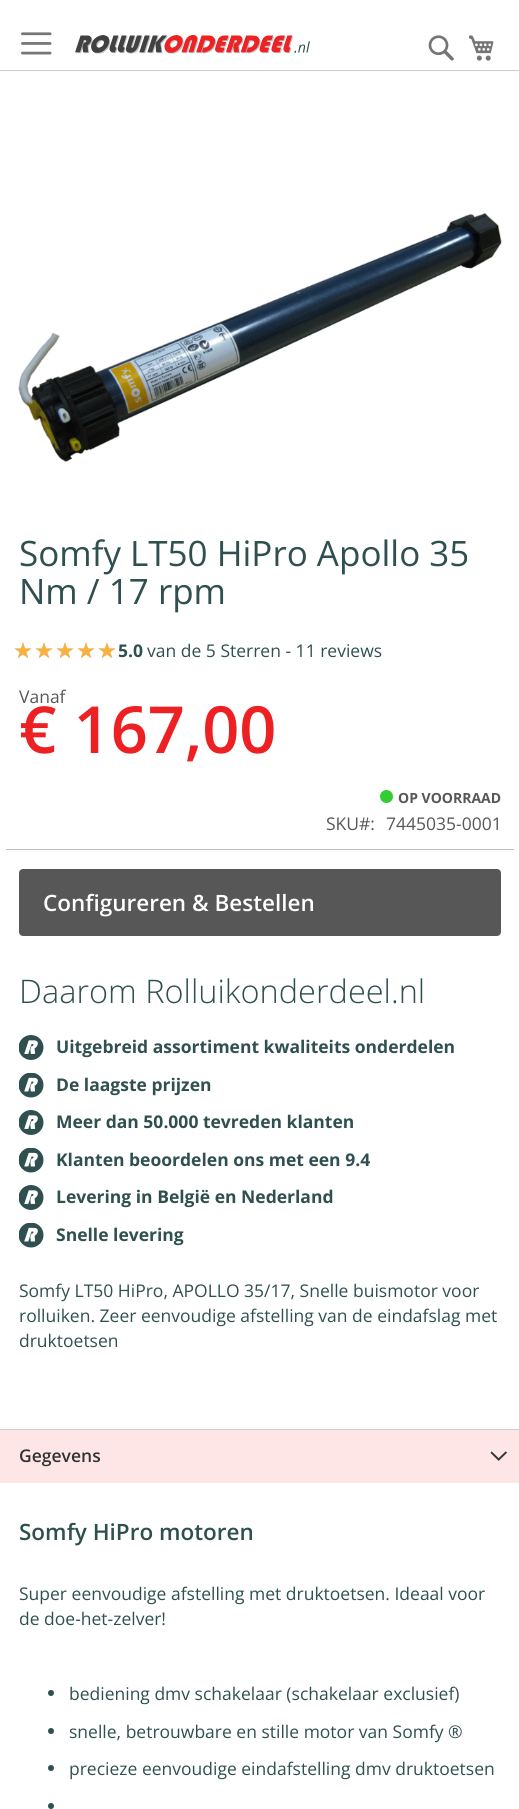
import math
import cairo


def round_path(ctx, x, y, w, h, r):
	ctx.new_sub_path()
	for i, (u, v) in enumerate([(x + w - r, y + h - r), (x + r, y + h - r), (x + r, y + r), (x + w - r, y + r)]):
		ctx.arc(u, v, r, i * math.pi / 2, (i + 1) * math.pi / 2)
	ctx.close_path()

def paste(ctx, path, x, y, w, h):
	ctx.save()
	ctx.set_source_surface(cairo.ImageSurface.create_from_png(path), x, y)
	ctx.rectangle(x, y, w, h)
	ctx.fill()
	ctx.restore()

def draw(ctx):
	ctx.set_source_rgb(1, 1, 1)
	ctx.paint()
	ctx.set_source_rgb(0.8, 0.8, 0.8)
	ctx.rectangle(0, 70, 519, 1)
	ctx.fill()
	paste(ctx, 'media/1.png', 21, 32, 31, 23)
	paste(ctx, 'media/2.png', 75, 35, 235, 19)
	paste(ctx, 'media/3.png', 428, 35, 26, 26)
	paste(ctx, 'media/4.png', 468, 35, 26, 26)
	paste(ctx, 'media/5.png', 18, 213, 484, 249)
	ctx.select_font_face('Open Sans')
	ctx.set_font_size(35)
	ctx.set_source_rgb(0.188, 0.31, 0.31)
	ctx.move_to(19, 566)
	ctx.show_text('Somfy LT50 HiPro Apollo 35')
	ctx.move_to(19, 604)
	ctx.show_text('Nm / 17 rpm')
	paste(ctx, 'media/6.png', 14, 642, 102, 16)
	paste(ctx, 'media/7.png', 14, 642, 102, 17)
	ctx.select_font_face('Open Sans', cairo.FONT_SLANT_NORMAL, cairo.FONT_WEIGHT_BOLD)
	ctx.set_font_size(17.5)
	ctx.move_to(118, 657)
	ctx.show_text('5.0')
	ctx.select_font_face('Open Sans')
	ctx.move_to(147, 657)
	ctx.show_text('van de 5 Sterren - 11 reviews')
	ctx.set_source_rgb(0.757, 0.757, 0.757)
	ctx.rectangle(6, 849, 508, 1)
	ctx.fill()
	ctx.set_source_rgb(0.341, 0.341, 0.341)
	ctx.move_to(19, 703)
	ctx.show_text('Vanaf')
	ctx.select_font_face('Open Sans SemiBold')
	ctx.set_font_size(65)
	ctx.set_source_rgb(0.929, 0.125, 0.141)
	ctx.move_to(19, 753)
	ctx.show_text('€ 167,00')
	ctx.set_source_rgb(0.196, 0.804, 0.196)
	ctx.new_path()
	ctx.arc(386.5, 796.5, 6.5, 0, 2 * math.pi)
	ctx.fill()
	ctx.select_font_face('Open Sans', cairo.FONT_SLANT_NORMAL, cairo.FONT_WEIGHT_BOLD)
	ctx.set_font_size(14)
	ctx.set_source_rgb(0.341, 0.341, 0.341)
	ctx.move_to(398, 803)
	ctx.show_text('OP VOORRAAD')
	ctx.select_font_face('Open Sans')
	ctx.set_font_size(17.5)
	ctx.move_to(326, 830)
	ctx.show_text('SKU#:')
	ctx.move_to(386, 830)
	ctx.show_text('7445035-0001')
	round_path(ctx, 20.5, 870.5, 479, 64, 2.5)
	ctx.fill_preserve()
	ctx.set_line_width(3)
	ctx.stroke()
	ctx.select_font_face('Open Sans SemiBold')
	ctx.set_font_size(22.5)
	ctx.set_source_rgb(1, 1, 1)
	ctx.move_to(43, 911)
	ctx.show_text('Configureren & Bestellen')
	ctx.select_font_face('Open Sans Light')
	ctx.set_font_size(32.5)
	ctx.set_source_rgb(0.188, 0.31, 0.31)
	ctx.move_to(19, 1003)
	ctx.show_text('Daarom Rolluikonderdeel.nl')
	paste(ctx, 'media/8.png', 19, 1035, 25, 25)
	ctx.select_font_face('Open Sans', cairo.FONT_SLANT_NORMAL, cairo.FONT_WEIGHT_BOLD)
	ctx.set_font_size(17.5)
	ctx.move_to(56, 1053)
	ctx.show_text('Uitgebreid assortiment kwaliteits onderdelen')
	paste(ctx, 'media/9.png', 19, 1073, 25, 25)
	ctx.move_to(56, 1091)
	ctx.show_text('De laagste prijzen')
	paste(ctx, 'media/8.png', 19, 1110, 25, 25)
	ctx.move_to(56, 1128)
	ctx.show_text('Meer dan 50.000 tevreden klanten')
	paste(ctx, 'media/9.png', 19, 1148, 25, 25)
	ctx.move_to(56, 1166)
	ctx.show_text('Klanten beoordelen ons met een 9.4')
	paste(ctx, 'media/8.png', 19, 1185, 25, 25)
	ctx.move_to(56, 1203)
	ctx.show_text('Levering in België en Nederland')
	paste(ctx, 'media/9.png', 19, 1223, 25, 25)
	ctx.move_to(56, 1241)
	ctx.show_text('Snelle levering')
	ctx.select_font_face('Open Sans')
	for x, y, s in [
		(19, 1297, 'Somfy LT50 HiPro, APOLLO 35/17, Snelle buismotor voor'),
		(19, 1322, 'rolluiken. Zeer eenvoudige afstelling van de eindafslag met'),
		(19, 1347, 'druktoetsen'),
	]:
		ctx.move_to(x, y)
		ctx.show_text(s)
	ctx.set_source_rgb(1, 0.902, 0.902)
	ctx.rectangle(0, 1430, 519, 53)
	ctx.fill()
	ctx.set_source_rgb(0.8, 0.8, 0.8)
	ctx.rectangle(0, 1429, 519, 1)
	ctx.fill()
	ctx.select_font_face('Open Sans SemiBold')
	ctx.set_source_rgb(0.2, 0.2, 0.2)
	ctx.move_to(19, 1462)
	ctx.show_text('Gegevens')
	paste(ctx, 'media/10.png', 490, 1451, 17, 10)
	ctx.set_font_size(22.5)
	ctx.set_source_rgb(0.188, 0.31, 0.31)
	ctx.move_to(19, 1540)
	ctx.show_text('Somfy HiPro motoren')
	ctx.select_font_face('Open Sans')
	ctx.set_font_size(17.5)
	ctx.move_to(19, 1600)
	ctx.show_text('Super eenvoudige afstelling met druktoetsen. Ideaal voor')
	ctx.move_to(19, 1625)
	ctx.show_text('de doe-het-zelver!')
	ctx.new_path()
	ctx.arc(51, 1693, 3, 0, 2 * math.pi)
	ctx.fill()
	ctx.move_to(69, 1700)
	ctx.show_text('bediening dmv schakelaar (schakelaar exclusief)')
	ctx.new_path()
	ctx.arc(51, 1731, 3, 0, 2 * math.pi)
	ctx.fill()
	ctx.move_to(69, 1738)
	ctx.show_text('snelle, betrouwbare en stille motor van Somfy ®')
	ctx.new_path()
	ctx.arc(51, 1768, 3, 0, 2 * math.pi)
	ctx.fill()
	ctx.move_to(69, 1775)
	ctx.show_text('precieze eenvoudige eindafstelling dmv druktoetsen')
	ctx.new_path()
	ctx.arc(51, 1806, 3, 0, 2 * math.pi)
	ctx.fill()


surface = cairo.ImageSurface(cairo.FORMAT_RGB24, 519, 1809)
ctx = cairo.Context(surface)
options = cairo.FontOptions()
options.set_hint_metrics(cairo.HINT_METRICS_OFF)
options.set_hint_style(cairo.HINT_STYLE_NONE)
ctx.set_font_options(options)
ctx.set_miter_limit(4)
draw(ctx)
surface.write_to_png('image.png')
